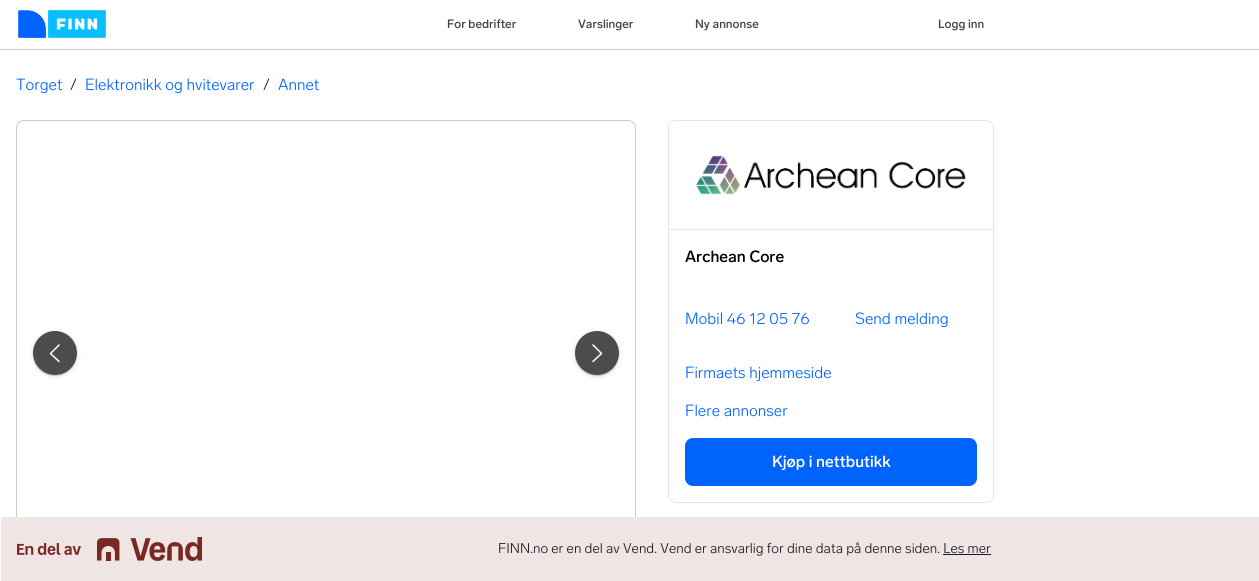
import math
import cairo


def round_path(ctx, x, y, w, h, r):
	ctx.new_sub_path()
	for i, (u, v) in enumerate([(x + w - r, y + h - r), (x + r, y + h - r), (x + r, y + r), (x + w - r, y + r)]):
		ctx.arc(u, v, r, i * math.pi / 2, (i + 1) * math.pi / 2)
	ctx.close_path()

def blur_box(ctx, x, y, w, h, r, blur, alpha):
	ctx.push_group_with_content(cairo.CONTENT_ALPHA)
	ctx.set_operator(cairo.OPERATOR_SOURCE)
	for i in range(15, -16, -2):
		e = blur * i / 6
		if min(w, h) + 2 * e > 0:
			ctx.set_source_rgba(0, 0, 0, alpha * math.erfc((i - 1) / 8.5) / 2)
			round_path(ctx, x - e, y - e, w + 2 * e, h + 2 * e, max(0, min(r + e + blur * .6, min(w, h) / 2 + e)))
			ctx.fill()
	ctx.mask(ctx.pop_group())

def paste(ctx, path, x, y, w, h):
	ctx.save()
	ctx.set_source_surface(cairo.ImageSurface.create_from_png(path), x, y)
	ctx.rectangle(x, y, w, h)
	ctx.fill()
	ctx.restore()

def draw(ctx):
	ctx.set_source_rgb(1, 1, 1)
	ctx.paint()
	ctx.set_source_rgb(0.792, 0.792, 0.82)
	ctx.rectangle(0, 49, 1259, 1)
	ctx.fill()
	paste(ctx, 'media/1.png', 18, 10, 88, 28)
	ctx.select_font_face('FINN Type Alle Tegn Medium')
	ctx.set_font_size(12)
	ctx.set_source_rgb(0.278, 0.267, 0.271)
	for x, y, s in [
		(447, 28, 'For bedrifter'),
		(578, 28, 'Varslinger'),
		(695, 28, 'Ny annonse'),
		(938, 28, 'Logg inn'),
	]:
		ctx.move_to(x, y)
		ctx.show_text(s)
	ctx.select_font_face('FINN Type Alle Tegn Light')
	ctx.set_font_size(16)
	ctx.set_source_rgb(0, 0.388, 0.984)
	ctx.move_to(16, 90)
	ctx.show_text('Torget')
	ctx.set_source_rgb(0.106, 0.106, 0.122)
	ctx.move_to(70, 90)
	ctx.show_text('/')
	ctx.set_source_rgb(0, 0.388, 0.984)
	ctx.move_to(85, 90)
	ctx.show_text('Elektronikk og hvitevarer')
	ctx.set_source_rgb(0.106, 0.106, 0.122)
	ctx.move_to(263, 90)
	ctx.show_text('/')
	ctx.set_source_rgb(0, 0.388, 0.984)
	ctx.move_to(278, 90)
	ctx.show_text('Annet')
	round_path(ctx, 16.5, 120.5, 619, 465, 7.5)
	ctx.set_source_rgb(0.792, 0.792, 0.82)
	ctx.set_line_width(1)
	ctx.stroke()
	ctx.save()
	round_path(ctx, 17, 121, 618, 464, 7)
	ctx.clip()
	ctx.set_source_rgba(1, 1, 1, 0.7)
	round_path(ctx, 17, 121, 618, 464, 8)
	ctx.fill()
	ctx.restore()
	ctx.save()
	ctx.set_fill_rule(cairo.FILL_RULE_EVEN_ODD)
	ctx.new_path()
	ctx.move_to(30, 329)
	ctx.line_to(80, 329)
	ctx.line_to(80, 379)
	ctx.line_to(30, 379)
	ctx.close_path()
	ctx.move_to(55, 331)
	ctx.curve_to(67, 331, 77, 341, 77, 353)
	ctx.curve_to(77, 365, 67, 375, 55, 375)
	ctx.curve_to(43, 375, 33, 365, 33, 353)
	ctx.curve_to(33, 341, 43, 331, 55, 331)
	ctx.close_path()
	ctx.clip()
	ctx.set_source_rgb(0, 0, 0)
	blur_box(ctx, 33, 332, 44, 44, 22, 0.5, 0.16)
	ctx.restore()
	ctx.save()
	ctx.set_fill_rule(cairo.FILL_RULE_EVEN_ODD)
	ctx.new_path()
	ctx.move_to(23, 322)
	ctx.line_to(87, 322)
	ctx.line_to(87, 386)
	ctx.line_to(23, 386)
	ctx.close_path()
	ctx.move_to(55, 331)
	ctx.curve_to(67, 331, 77, 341, 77, 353)
	ctx.curve_to(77, 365, 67, 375, 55, 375)
	ctx.curve_to(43, 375, 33, 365, 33, 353)
	ctx.curve_to(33, 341, 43, 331, 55, 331)
	ctx.close_path()
	ctx.clip()
	ctx.set_source_rgb(0, 0, 0)
	blur_box(ctx, 33, 332, 44, 44, 22, 3, 0.12)
	ctx.restore()
	ctx.set_source_rgba(0, 0, 0, 0.7)
	ctx.arc(55, 353, 22, 0, 2 * math.pi)
	ctx.fill()
	ctx.new_path()
	ctx.move_to(59, 361.5)
	ctx.line_to(50.5, 353.5)
	ctx.line_to(59, 345)
	ctx.set_source_rgb(1, 1, 1)
	ctx.set_line_width(1.5)
	ctx.set_line_cap(cairo.LINE_CAP_ROUND)
	ctx.set_line_join(cairo.LINE_JOIN_ROUND)
	ctx.stroke()
	ctx.save()
	ctx.set_fill_rule(cairo.FILL_RULE_EVEN_ODD)
	ctx.new_path()
	ctx.move_to(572, 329)
	ctx.line_to(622, 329)
	ctx.line_to(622, 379)
	ctx.line_to(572, 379)
	ctx.close_path()
	ctx.move_to(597, 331)
	ctx.curve_to(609, 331, 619, 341, 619, 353)
	ctx.curve_to(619, 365, 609, 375, 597, 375)
	ctx.curve_to(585, 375, 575, 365, 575, 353)
	ctx.curve_to(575, 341, 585, 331, 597, 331)
	ctx.close_path()
	ctx.clip()
	ctx.set_source_rgb(0, 0, 0)
	blur_box(ctx, 575, 332, 44, 44, 22, 0.5, 0.16)
	ctx.restore()
	ctx.save()
	ctx.set_fill_rule(cairo.FILL_RULE_EVEN_ODD)
	ctx.new_path()
	ctx.move_to(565, 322)
	ctx.line_to(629, 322)
	ctx.line_to(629, 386)
	ctx.line_to(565, 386)
	ctx.close_path()
	ctx.move_to(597, 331)
	ctx.curve_to(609, 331, 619, 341, 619, 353)
	ctx.curve_to(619, 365, 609, 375, 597, 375)
	ctx.curve_to(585, 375, 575, 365, 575, 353)
	ctx.curve_to(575, 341, 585, 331, 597, 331)
	ctx.close_path()
	ctx.clip()
	ctx.set_source_rgb(0, 0, 0)
	blur_box(ctx, 575, 332, 44, 44, 22, 3, 0.12)
	ctx.restore()
	ctx.set_source_rgba(0, 0, 0, 0.7)
	ctx.arc(597, 353, 22, 0, 2 * math.pi)
	ctx.fill()
	ctx.new_path()
	ctx.move_to(593, 361.5)
	ctx.line_to(601.5, 353.5)
	ctx.line_to(593, 345)
	ctx.set_source_rgb(1, 1, 1)
	ctx.stroke()
	round_path(ctx, 668.5, 120.5, 325, 382, 7.5)
	ctx.set_source_rgb(0.898, 0.898, 0.898)
	ctx.set_line_width(1)
	ctx.set_line_cap(cairo.LINE_CAP_BUTT)
	ctx.set_line_join(cairo.LINE_JOIN_MITER)
	ctx.stroke()
	ctx.set_source_rgb(1, 1, 1)
	ctx.new_path()
	ctx.move_to(677, 121)
	ctx.line_to(985, 121)
	ctx.curve_to(989.5, 121, 993, 124.5, 993, 129)
	ctx.line_to(993, 229)
	ctx.line_to(669, 229)
	ctx.line_to(669, 129)
	ctx.curve_to(669, 124.5, 672.5, 121, 677, 121)
	ctx.close_path()
	ctx.fill()
	ctx.set_source_rgb(0.898, 0.898, 0.898)
	ctx.rectangle(669, 229, 324, 1)
	ctx.fill()
	paste(ctx, 'media/2.png', 696, 155, 270, 40)
	ctx.set_source_rgb(1, 1, 1)
	ctx.new_path()
	ctx.move_to(669, 230)
	ctx.line_to(993, 230)
	ctx.line_to(993, 494)
	ctx.curve_to(993, 498.5, 989.5, 502, 985, 502)
	ctx.line_to(677, 502)
	ctx.curve_to(672.5, 502, 669, 498.5, 669, 494)
	ctx.close_path()
	ctx.fill()
	ctx.select_font_face('FINN Type Alle Tegn Medium')
	ctx.set_source_rgb(0, 0, 0)
	ctx.move_to(685, 262)
	ctx.show_text('Archean Core')
	ctx.select_font_face('FINN Type Alle Tegn Light')
	ctx.set_source_rgb(0, 0.388, 0.984)
	for x, y, s in [
		(685, 324, 'Mobil 46 12 05 76'),
		(855, 324, 'Send melding'),
		(685, 378, 'Firmaets hjemmeside'),
		(685, 416, 'Flere annonser'),
	]:
		ctx.move_to(x, y)
		ctx.show_text(s)
	round_path(ctx, 685, 438, 292, 48, 8)
	ctx.fill()
	ctx.select_font_face('FINN Type Alle Tegn Medium')
	ctx.set_source_rgb(1, 1, 1)
	ctx.move_to(772, 467)
	ctx.show_text('Kjøp i nettbutikk')
	ctx.set_source_rgb(0.937, 0.898, 0.898)
	ctx.rectangle(1, 517, 1258, 64)
	ctx.fill()
	paste(ctx, 'media/3.png', 17, 537, 185, 24)
	ctx.select_font_face('FINN Type Alle Tegn Light')
	ctx.set_font_size(14)
	ctx.set_source_rgb(0.106, 0.106, 0.122)
	ctx.move_to(498, 553)
	ctx.show_text('FINN.no er en del av Vend. Vend er ansvarlig for dine data på denne siden. Les mer')
	ctx.rectangle(943, 554, 48, 1)
	ctx.fill()


surface = cairo.ImageSurface(cairo.FORMAT_RGB24, 1259, 581)
ctx = cairo.Context(surface)
options = cairo.FontOptions()
options.set_hint_metrics(cairo.HINT_METRICS_OFF)
options.set_hint_style(cairo.HINT_STYLE_NONE)
ctx.set_font_options(options)
ctx.set_miter_limit(4)
draw(ctx)
surface.write_to_png('image.png')
